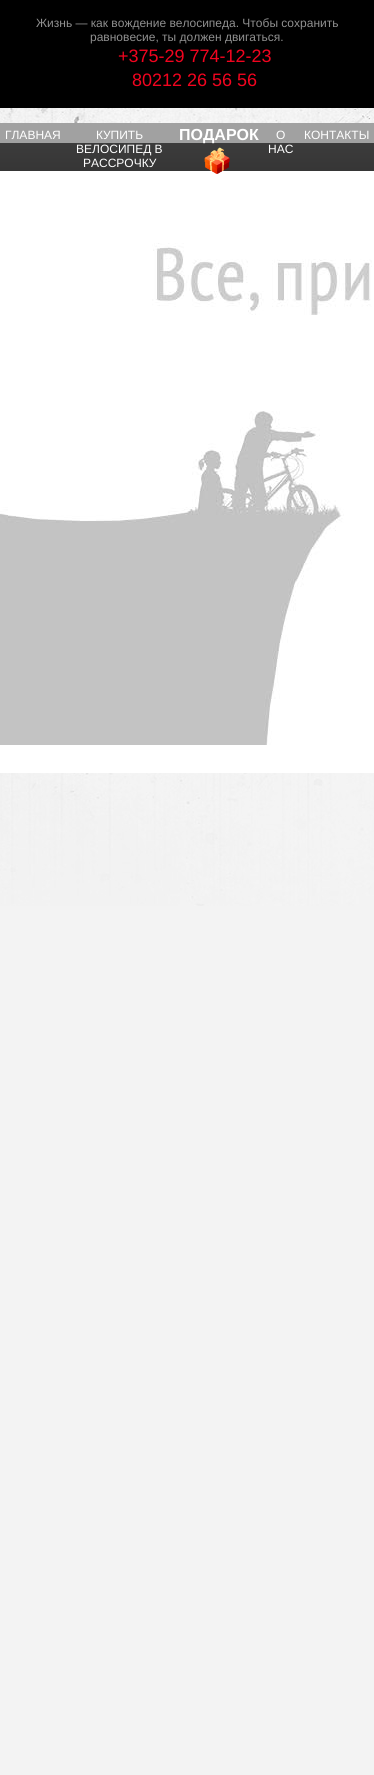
import math
import cairo


def paste(ctx, path, x, y, w, h):
	ctx.save()
	ctx.set_source_surface(cairo.ImageSurface.create_from_png(path), x, y)
	ctx.rectangle(x, y, w, h)
	ctx.fill()
	ctx.restore()

def draw(ctx):
	ctx.set_source_rgb(0.953, 0.953, 0.953)
	ctx.paint()
	paste(ctx, 'media/1.png', 0, 108, 374, 798)
	ctx.set_source_rgb(0, 0, 0)
	ctx.rectangle(0, 0, 374, 108)
	ctx.fill()
	ctx.select_font_face('Liberation Sans')
	ctx.set_font_size(12)
	ctx.set_source_rgb(0.565, 0.565, 0.565)
	ctx.move_to(36, 27)
	ctx.show_text('Жизнь — как вождение велосипеда. Чтобы сохранить')
	ctx.move_to(90, 41)
	ctx.show_text('равновесие, ты должен двигаться.')
	ctx.set_font_size(18)
	ctx.set_source_rgb(0.949, 0.016, 0.122)
	ctx.move_to(118, 62)
	ctx.show_text('+375-29 774-12-23')
	ctx.move_to(132, 86)
	ctx.show_text('80212 26 56 56')
	ctx.set_source_rgb(1, 1, 1)
	ctx.rectangle(0, 171, 374, 602)
	ctx.fill()
	paste(ctx, 'media/2.png', 0, 143, 374, 28)
	ctx.set_source_rgb(0.631, 0.631, 0.631)
	ctx.rectangle(0, 123, 374, 20)
	ctx.fill()
	ctx.set_font_size(12)
	ctx.set_source_rgb(1, 1, 1)
	for x, y, s in [
		(5, 139, 'ГЛАВНАЯ'),
		(96, 139, 'КУПИТЬ'),
		(76, 153, 'ВЕЛОСИПЕД В'),
		(83, 167, 'РАССРОЧКУ'),
	]:
		ctx.move_to(x, y)
		ctx.show_text(s)
	ctx.select_font_face('Liberation Sans', cairo.FONT_SLANT_NORMAL, cairo.FONT_WEIGHT_BOLD)
	ctx.set_font_size(16)
	ctx.move_to(179, 140)
	ctx.show_text('ПОДАРОК')
	paste(ctx, 'media/3.png', 204, 147, 26, 27)
	ctx.select_font_face('Liberation Sans')
	ctx.set_font_size(12)
	for x, y, s in [
		(276, 139, 'О'),
		(268, 153, 'НАС'),
		(304, 139, 'КОНТАКТЫ'),
	]:
		ctx.move_to(x, y)
		ctx.show_text(s)
	paste(ctx, 'media/4.png', 0, 243, 372, 502)


surface = cairo.ImageSurface(cairo.FORMAT_RGB24, 374, 1775)
ctx = cairo.Context(surface)
options = cairo.FontOptions()
options.set_hint_metrics(cairo.HINT_METRICS_OFF)
options.set_hint_style(cairo.HINT_STYLE_NONE)
ctx.set_font_options(options)
ctx.set_miter_limit(4)
draw(ctx)
surface.write_to_png('image.png')
